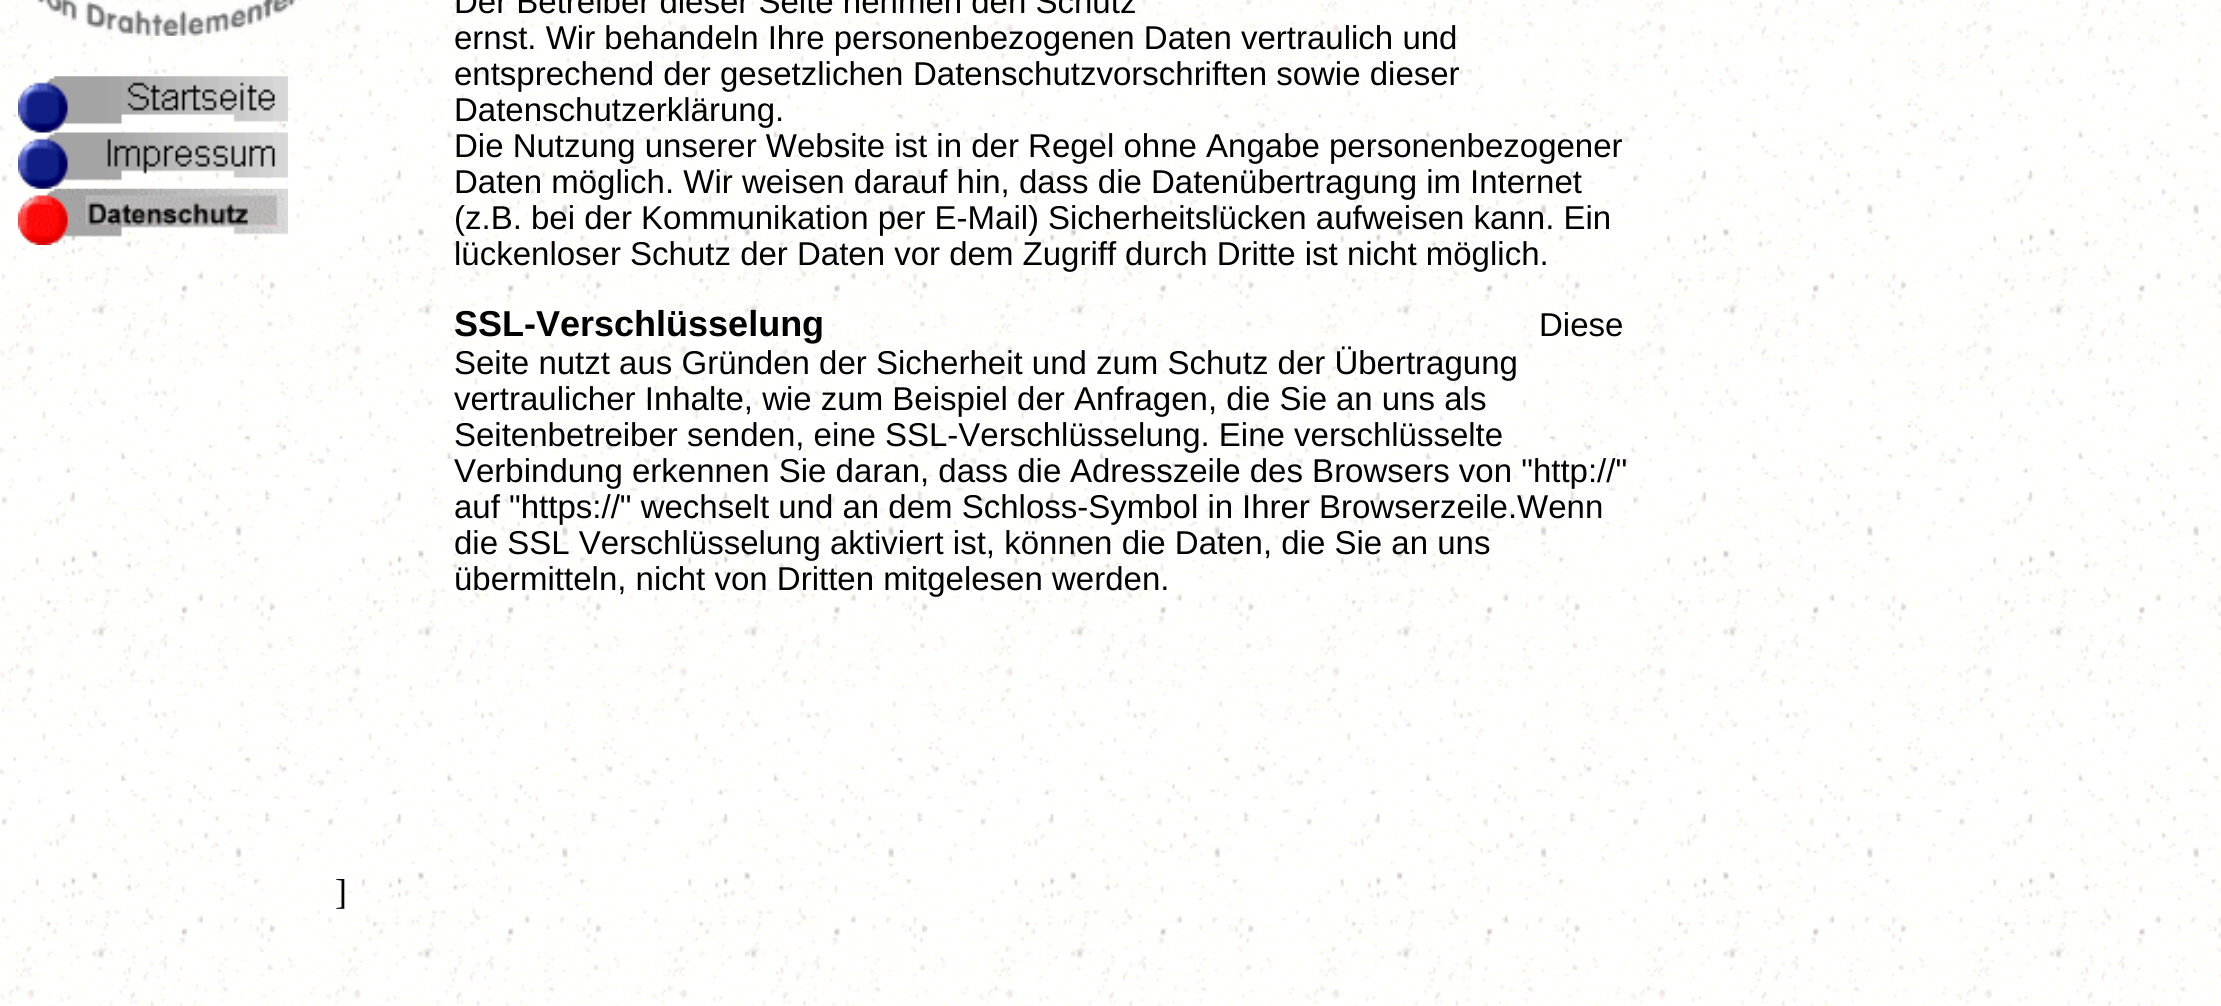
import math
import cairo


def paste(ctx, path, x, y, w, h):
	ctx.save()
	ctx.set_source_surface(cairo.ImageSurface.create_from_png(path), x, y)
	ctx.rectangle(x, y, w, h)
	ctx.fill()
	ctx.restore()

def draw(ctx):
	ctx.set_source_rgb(1, 1, 1)
	ctx.paint()
	paste(ctx, 'media/1.png', 0, 0, 2221, 1006)
	paste(ctx, 'media/2.png', 18, 0, 309, 36)
	paste(ctx, 'media/3.png', 18, 76, 270, 57)
	paste(ctx, 'media/4.png', 18, 132, 270, 57)
	paste(ctx, 'media/5.png', 18, 188, 270, 57)
	ctx.select_font_face('Liberation Sans')
	ctx.set_font_size(33)
	ctx.set_source_rgb(0, 0, 0)
	for x, y, s in [
		(454, 13, 'Der Betreiber dieser Seite nehmen den Schutz'),
		(454, 49, 'ernst. Wir behandeln Ihre personenbezogenen Daten'),
		(1241, 49, 'vertraulich und'),
		(454, 85, 'entsprechend der gesetzlichen'),
		(913, 85, 'Datenschutzvorschriften sowie dieser'),
		(454, 121, 'Datenschutzerklärung.'),
		(454, 157, 'Die Nutzung unserer Website ist in der Regel ohne Angabe'),
		(1329, 157, 'personenbezogener'),
		(454, 193, 'Daten möglich. Wir weisen darauf hin, dass die Datenübertragung im'),
		(1470, 193, 'Internet'),
		(454, 229, '(z.B. bei der Kommunikation per E-Mail)'),
		(1048, 229, 'Sicherheitslücken aufweisen kann. Ein'),
		(454, 265, 'lückenloser Schutz der Daten vor dem Zugriff'),
		(1125, 265, 'durch Dritte ist nicht möglich.'),
	]:
		ctx.move_to(x, y)
		ctx.show_text(s)
	ctx.select_font_face('Liberation Sans', cairo.FONT_SLANT_NORMAL, cairo.FONT_WEIGHT_BOLD)
	ctx.set_font_size(36)
	ctx.move_to(454, 336)
	ctx.show_text('SSL-Verschlüsselung')
	ctx.select_font_face('Liberation Sans')
	ctx.set_font_size(33)
	for x, y, s in [
		(1539, 336, 'Diese'),
		(454, 374, 'Seite nutzt aus Gründen der Sicherheit und'),
		(1096, 374, 'zum Schutz der Übertragung'),
		(454, 410, 'vertraulicher Inhalte, wie zum Beispiel der Anfragen, die Sie'),
		(1336, 410, 'an uns als'),
		(454, 446, 'Seitenbetreiber senden, eine'),
		(885, 446, 'SSL-Verschlüsselung. Eine verschlüsselte'),
		(454, 482, 'Verbindung erkennen Sie daran, dass die'),
		(1070, 482, 'Adresszeile des Browsers von "http://"'),
		(454, 518, 'auf "https://" wechselt und an dem Schloss-Symbol in'),
		(1242, 518, 'Ihrer Browserzeile.Wenn'),
		(454, 554, 'die SSL Verschlüsselung'),
		(830, 554, 'aktiviert ist, können die Daten, die Sie an uns'),
		(454, 590, 'übermitteln, nicht von Dritten mitgelesen'),
		(1052, 590, 'werden.'),
	]:
		ctx.move_to(x, y)
		ctx.show_text(s)
	ctx.select_font_face('Liberation Serif')
	ctx.set_font_size(36)
	ctx.move_to(335, 904)
	ctx.show_text(']')


surface = cairo.ImageSurface(cairo.FORMAT_RGB24, 2221, 1006)
ctx = cairo.Context(surface)
options = cairo.FontOptions()
options.set_hint_metrics(cairo.HINT_METRICS_OFF)
options.set_hint_style(cairo.HINT_STYLE_NONE)
ctx.set_font_options(options)
ctx.set_miter_limit(4)
draw(ctx)
surface.write_to_png('image.png')
